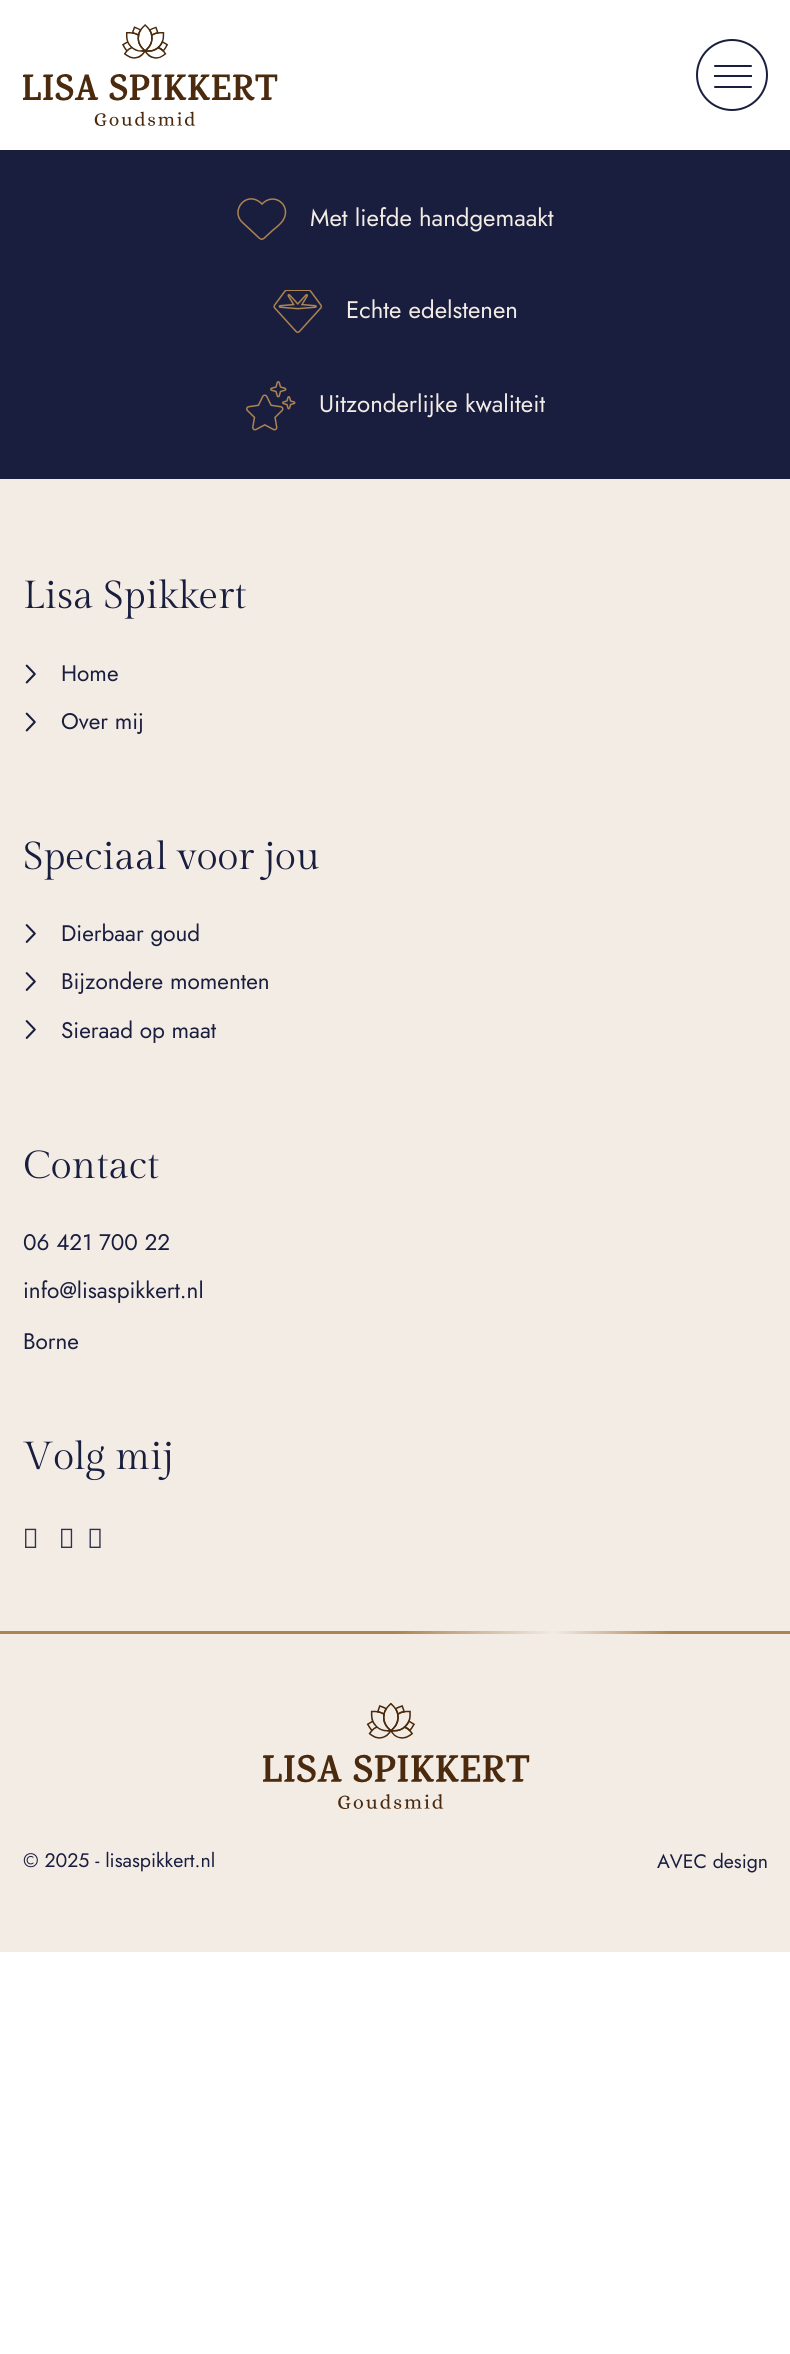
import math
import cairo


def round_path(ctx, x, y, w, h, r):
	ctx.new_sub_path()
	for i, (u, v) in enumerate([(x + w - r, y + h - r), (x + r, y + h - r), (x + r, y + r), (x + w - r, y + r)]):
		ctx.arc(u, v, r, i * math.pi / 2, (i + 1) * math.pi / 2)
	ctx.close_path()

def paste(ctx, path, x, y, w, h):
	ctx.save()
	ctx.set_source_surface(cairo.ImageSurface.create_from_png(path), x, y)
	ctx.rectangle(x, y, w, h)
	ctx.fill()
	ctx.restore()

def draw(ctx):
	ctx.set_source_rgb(1, 1, 1)
	ctx.paint()
	paste(ctx, 'media/1.png', 23, 24, 255, 102)
	ctx.arc(732, 75, 35, 0, 2 * math.pi)
	ctx.set_source_rgb(0.102, 0.118, 0.243)
	ctx.stroke()
	ctx.rectangle(714, 75, 38, 2)
	ctx.fill()
	round_path(ctx, 714, 65, 38, 2, 1)
	ctx.fill()
	round_path(ctx, 714, 86, 38, 2, 1)
	ctx.fill()
	ctx.rectangle(0, 150, 790, 329)
	ctx.fill()
	ctx.new_path()
	ctx.move_to(242.5, 222.5)
	ctx.line_to(256.5, 235.5)
	ctx.curve_to(261.5, 240.5, 262, 240.5, 267, 235.5)
	ctx.line_to(272.5, 230.5)
	ctx.curve_to(276.5, 227, 281, 224, 283.5, 219.5)
	ctx.curve_to(291.5, 205, 274, 191.5, 262, 204)
	ctx.curve_to(247, 189, 229.5, 210.5, 242.5, 222.5)
	ctx.close_path()
	ctx.set_source_rgb(0.678, 0.514, 0.314)
	ctx.set_line_width(1.5)
	ctx.stroke()
	ctx.select_font_face('Jost')
	ctx.set_font_size(24)
	ctx.set_source_rgb(0.953, 0.925, 0.898)
	ctx.move_to(310, 226)
	ctx.show_text('Met liefde handgemaakt')
	paste(ctx, 'media/2.png', 273, 290, 50, 43)
	ctx.move_to(346, 318)
	ctx.show_text('Echte edelstenen')
	paste(ctx, 'media/3.png', 246, 381, 50, 50)
	ctx.move_to(319, 412)
	ctx.show_text('Uitzonderlijke kwaliteit')
	ctx.rectangle(0, 479, 790, 1473)
	ctx.fill()
	ctx.select_font_face('Gilda Display')
	ctx.set_font_size(39)
	ctx.set_source_rgb(0.102, 0.118, 0.243)
	ctx.move_to(23, 608)
	ctx.show_text('Lisa Spikkert')
	paste(ctx, 'media/4.png', 25, 664, 11, 20)
	ctx.select_font_face('Jost')
	ctx.set_font_size(22.5)
	ctx.move_to(61, 681)
	ctx.show_text('Home')
	paste(ctx, 'media/4.png', 25, 712, 11, 20)
	ctx.move_to(61, 729)
	ctx.show_text('Over mij')
	ctx.select_font_face('Gilda Display')
	ctx.set_font_size(39)
	ctx.move_to(23, 869)
	ctx.show_text('Speciaal voor jou')
	paste(ctx, 'media/5.png', 25, 924, 11, 19)
	ctx.select_font_face('Jost')
	ctx.set_font_size(22.5)
	ctx.move_to(61, 941)
	ctx.show_text('Dierbaar goud')
	paste(ctx, 'media/5.png', 25, 972, 11, 19)
	ctx.move_to(61, 989)
	ctx.show_text('Bijzondere momenten')
	paste(ctx, 'media/5.png', 25, 1020, 11, 19)
	ctx.move_to(61, 1038)
	ctx.show_text('Sieraad op maat')
	ctx.select_font_face('Gilda Display')
	ctx.set_font_size(39)
	ctx.move_to(23, 1178)
	ctx.show_text('Contact')
	ctx.select_font_face('Jost')
	ctx.set_font_size(22.5)
	for x, y, s in [
		(23, 1250, '06 421 700 22'),
		(23, 1298, 'info@lisaspikkert.nl'),
		(23, 1349, 'Borne'),
	]:
		ctx.move_to(x, y)
		ctx.show_text(s)
	ctx.select_font_face('Gilda Display')
	ctx.set_font_size(39)
	ctx.move_to(23, 1469)
	ctx.show_text('Volg mij')
	paste(ctx, 'media/6.png', 25, 1528, 12, 20)
	paste(ctx, 'media/6.png', 61, 1528, 12, 20)
	paste(ctx, 'media/7.png', 89, 1528, 12, 20)
	gradient = cairo.LinearGradient(0, 1632, 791, 1632)
	gradient.add_color_stop_rgba(0, 0.678, 0.514, 0.314, 1)
	gradient.add_color_stop_rgba(0.5, 0.678, 0.514, 0.314, 1)
	gradient.add_color_stop_rgba(0.7, 0.941, 0.922, 0.902, 1)
	gradient.add_color_stop_rgba(0.85, 0.678, 0.514, 0.314, 1)
	gradient.add_color_stop_rgba(1, 0.678, 0.514, 0.314, 1)
	ctx.set_source(gradient)
	ctx.rectangle(0, 1631, 790, 3)
	ctx.fill()
	paste(ctx, 'media/8.png', 263, 1703, 267, 106)
	ctx.select_font_face('Jost')
	ctx.set_font_size(19.5)
	ctx.set_source_rgb(0.102, 0.118, 0.243)
	ctx.move_to(23, 1867)
	ctx.show_text('© 2025 - lisaspikkert.nl')
	ctx.move_to(657, 1868)
	ctx.show_text('AVEC design')


surface = cairo.ImageSurface(cairo.FORMAT_RGB24, 790, 2354)
ctx = cairo.Context(surface)
options = cairo.FontOptions()
options.set_hint_metrics(cairo.HINT_METRICS_OFF)
options.set_hint_style(cairo.HINT_STYLE_NONE)
ctx.set_font_options(options)
ctx.set_miter_limit(4)
draw(ctx)
surface.write_to_png('image.png')
